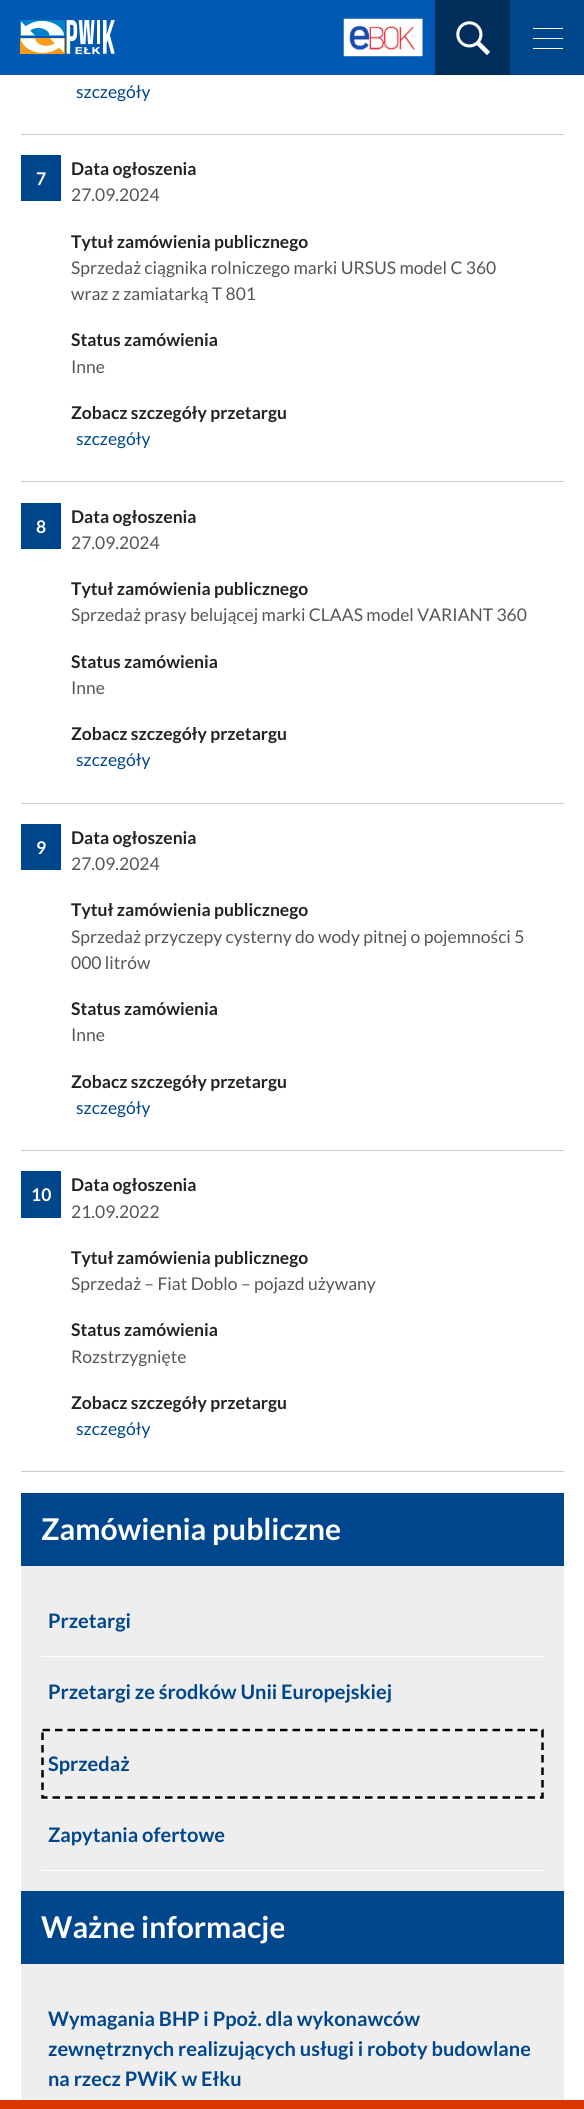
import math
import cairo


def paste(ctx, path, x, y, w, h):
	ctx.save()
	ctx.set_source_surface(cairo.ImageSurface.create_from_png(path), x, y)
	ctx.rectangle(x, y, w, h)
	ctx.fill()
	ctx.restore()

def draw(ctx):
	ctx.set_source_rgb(1, 1, 1)
	ctx.paint()
	ctx.set_source_rgb(0, 0.349, 0.698)
	ctx.rectangle(0, 0, 435, 75)
	ctx.fill()
	paste(ctx, 'media/1.png', 20, 20, 95, 35)
	paste(ctx, 'media/2.png', 343, 18, 80, 39)
	ctx.set_source_rgb(0, 0.176, 0.349)
	ctx.rectangle(435, 0, 75, 75)
	ctx.fill()
	paste(ctx, 'media/3.png', 456, 21, 34, 34)
	ctx.set_source_rgb(0, 0.275, 0.549)
	ctx.rectangle(510, 0, 74, 75)
	ctx.fill()
	ctx.set_source_rgb(1, 1, 1)
	ctx.rectangle(533, 38, 30, 1)
	ctx.rectangle(533, 28, 30, 1)
	ctx.rectangle(533, 48, 30, 1)
	ctx.fill()
	ctx.set_source_rgb(0.8, 0.8, 0.8)
	ctx.rectangle(21, 134, 543, 1)
	ctx.fill()
	ctx.select_font_face('Lato')
	ctx.set_font_size(17.5)
	ctx.set_source_rgb(0, 0.275, 0.549)
	ctx.move_to(76, 98)
	ctx.show_text('szczegóły')
	ctx.set_source_rgb(0.8, 0.8, 0.8)
	ctx.rectangle(21, 481, 543, 1)
	ctx.fill()
	ctx.set_source_rgb(0, 0.275, 0.549)
	ctx.rectangle(21, 155, 40, 46)
	ctx.fill()
	ctx.select_font_face('Lato', cairo.FONT_SLANT_NORMAL, cairo.FONT_WEIGHT_BOLD)
	ctx.set_source_rgb(1, 1, 1)
	ctx.move_to(36, 185)
	ctx.show_text('7')
	ctx.set_source_rgb(0.133, 0.133, 0.133)
	ctx.move_to(71, 175)
	ctx.show_text('Data ogłoszenia')
	ctx.select_font_face('Lato')
	ctx.set_source_rgb(0.333, 0.333, 0.333)
	ctx.move_to(71, 201)
	ctx.show_text('27.09.2024')
	ctx.select_font_face('Lato', cairo.FONT_SLANT_NORMAL, cairo.FONT_WEIGHT_BOLD)
	ctx.set_source_rgb(0.133, 0.133, 0.133)
	ctx.move_to(71, 248)
	ctx.show_text('Tytuł zamówienia publicznego')
	ctx.select_font_face('Lato')
	ctx.set_source_rgb(0.333, 0.333, 0.333)
	ctx.move_to(71, 274)
	ctx.show_text('Sprzedaż ciągnika rolniczego marki URSUS model C 360')
	ctx.move_to(71, 300)
	ctx.show_text('wraz z zamiatarką T 801')
	ctx.select_font_face('Lato', cairo.FONT_SLANT_NORMAL, cairo.FONT_WEIGHT_BOLD)
	ctx.set_source_rgb(0.133, 0.133, 0.133)
	ctx.move_to(71, 346)
	ctx.show_text('Status zamówienia')
	ctx.select_font_face('Lato')
	ctx.set_source_rgb(0.333, 0.333, 0.333)
	ctx.move_to(71, 373)
	ctx.show_text('Inne')
	ctx.select_font_face('Lato', cairo.FONT_SLANT_NORMAL, cairo.FONT_WEIGHT_BOLD)
	ctx.set_source_rgb(0.133, 0.133, 0.133)
	ctx.move_to(71, 419)
	ctx.show_text('Zobacz szczegóły przetargu')
	ctx.select_font_face('Lato')
	ctx.set_source_rgb(0, 0.275, 0.549)
	ctx.move_to(76, 445)
	ctx.show_text('szczegóły')
	ctx.set_source_rgb(0.8, 0.8, 0.8)
	ctx.rectangle(21, 803, 543, 1)
	ctx.fill()
	ctx.set_source_rgb(0, 0.275, 0.549)
	ctx.rectangle(21, 503, 40, 46)
	ctx.fill()
	ctx.select_font_face('Lato', cairo.FONT_SLANT_NORMAL, cairo.FONT_WEIGHT_BOLD)
	ctx.set_source_rgb(1, 1, 1)
	ctx.move_to(36, 533)
	ctx.show_text('8')
	ctx.set_source_rgb(0.133, 0.133, 0.133)
	ctx.move_to(71, 523)
	ctx.show_text('Data ogłoszenia')
	ctx.select_font_face('Lato')
	ctx.set_source_rgb(0.333, 0.333, 0.333)
	ctx.move_to(71, 549)
	ctx.show_text('27.09.2024')
	ctx.select_font_face('Lato', cairo.FONT_SLANT_NORMAL, cairo.FONT_WEIGHT_BOLD)
	ctx.set_source_rgb(0.133, 0.133, 0.133)
	ctx.move_to(71, 595)
	ctx.show_text('Tytuł zamówienia publicznego')
	ctx.select_font_face('Lato')
	ctx.set_source_rgb(0.333, 0.333, 0.333)
	ctx.move_to(71, 621)
	ctx.show_text('Sprzedaż prasy belującej marki CLAAS model VARIANT 360')
	ctx.select_font_face('Lato', cairo.FONT_SLANT_NORMAL, cairo.FONT_WEIGHT_BOLD)
	ctx.set_source_rgb(0.133, 0.133, 0.133)
	ctx.move_to(71, 668)
	ctx.show_text('Status zamówienia')
	ctx.select_font_face('Lato')
	ctx.set_source_rgb(0.333, 0.333, 0.333)
	ctx.move_to(71, 694)
	ctx.show_text('Inne')
	ctx.select_font_face('Lato', cairo.FONT_SLANT_NORMAL, cairo.FONT_WEIGHT_BOLD)
	ctx.set_source_rgb(0.133, 0.133, 0.133)
	ctx.move_to(71, 740)
	ctx.show_text('Zobacz szczegóły przetargu')
	ctx.select_font_face('Lato')
	ctx.set_source_rgb(0, 0.275, 0.549)
	ctx.move_to(76, 766)
	ctx.show_text('szczegóły')
	ctx.set_source_rgb(0.8, 0.8, 0.8)
	ctx.rectangle(21, 1150, 543, 1)
	ctx.fill()
	ctx.set_source_rgb(0, 0.275, 0.549)
	ctx.rectangle(21, 824, 40, 46)
	ctx.fill()
	ctx.select_font_face('Lato', cairo.FONT_SLANT_NORMAL, cairo.FONT_WEIGHT_BOLD)
	ctx.set_source_rgb(1, 1, 1)
	ctx.move_to(36, 854)
	ctx.show_text('9')
	ctx.set_source_rgb(0.133, 0.133, 0.133)
	ctx.move_to(71, 844)
	ctx.show_text('Data ogłoszenia')
	ctx.select_font_face('Lato')
	ctx.set_source_rgb(0.333, 0.333, 0.333)
	ctx.move_to(71, 870)
	ctx.show_text('27.09.2024')
	ctx.select_font_face('Lato', cairo.FONT_SLANT_NORMAL, cairo.FONT_WEIGHT_BOLD)
	ctx.set_source_rgb(0.133, 0.133, 0.133)
	ctx.move_to(71, 916)
	ctx.show_text('Tytuł zamówienia publicznego')
	ctx.select_font_face('Lato')
	ctx.set_source_rgb(0.333, 0.333, 0.333)
	ctx.move_to(71, 943)
	ctx.show_text('Sprzedaż przyczepy cysterny do wody pitnej o pojemności 5')
	ctx.move_to(71, 969)
	ctx.show_text('000 litrów')
	ctx.select_font_face('Lato', cairo.FONT_SLANT_NORMAL, cairo.FONT_WEIGHT_BOLD)
	ctx.set_source_rgb(0.133, 0.133, 0.133)
	ctx.move_to(71, 1015)
	ctx.show_text('Status zamówienia')
	ctx.select_font_face('Lato')
	ctx.set_source_rgb(0.333, 0.333, 0.333)
	ctx.move_to(71, 1041)
	ctx.show_text('Inne')
	ctx.select_font_face('Lato', cairo.FONT_SLANT_NORMAL, cairo.FONT_WEIGHT_BOLD)
	ctx.set_source_rgb(0.133, 0.133, 0.133)
	ctx.move_to(71, 1088)
	ctx.show_text('Zobacz szczegóły przetargu')
	ctx.select_font_face('Lato')
	ctx.set_source_rgb(0, 0.275, 0.549)
	ctx.move_to(76, 1114)
	ctx.show_text('szczegóły')
	ctx.set_source_rgb(0.8, 0.8, 0.8)
	ctx.rectangle(21, 1471, 543, 1)
	ctx.fill()
	ctx.set_source_rgb(0, 0.275, 0.549)
	ctx.rectangle(21, 1171, 40, 47)
	ctx.fill()
	ctx.select_font_face('Lato', cairo.FONT_SLANT_NORMAL, cairo.FONT_WEIGHT_BOLD)
	ctx.set_source_rgb(1, 1, 1)
	ctx.move_to(31, 1201)
	ctx.show_text('10')
	ctx.set_source_rgb(0.133, 0.133, 0.133)
	ctx.move_to(71, 1191)
	ctx.show_text('Data ogłoszenia')
	ctx.select_font_face('Lato')
	ctx.set_source_rgb(0.333, 0.333, 0.333)
	ctx.move_to(71, 1218)
	ctx.show_text('21.09.2022')
	ctx.select_font_face('Lato', cairo.FONT_SLANT_NORMAL, cairo.FONT_WEIGHT_BOLD)
	ctx.set_source_rgb(0.133, 0.133, 0.133)
	ctx.move_to(71, 1264)
	ctx.show_text('Tytuł zamówienia publicznego')
	ctx.select_font_face('Lato')
	ctx.set_source_rgb(0.333, 0.333, 0.333)
	ctx.move_to(71, 1290)
	ctx.show_text('Sprzedaż – Fiat Doblo – pojazd używany')
	ctx.select_font_face('Lato', cairo.FONT_SLANT_NORMAL, cairo.FONT_WEIGHT_BOLD)
	ctx.set_source_rgb(0.133, 0.133, 0.133)
	ctx.move_to(71, 1336)
	ctx.show_text('Status zamówienia')
	ctx.select_font_face('Lato')
	ctx.set_source_rgb(0.333, 0.333, 0.333)
	ctx.move_to(71, 1363)
	ctx.show_text('Rozstrzygnięte')
	ctx.select_font_face('Lato', cairo.FONT_SLANT_NORMAL, cairo.FONT_WEIGHT_BOLD)
	ctx.set_source_rgb(0.133, 0.133, 0.133)
	ctx.move_to(71, 1409)
	ctx.show_text('Zobacz szczegóły przetargu')
	ctx.select_font_face('Lato')
	ctx.set_source_rgb(0, 0.275, 0.549)
	ctx.move_to(76, 1435)
	ctx.show_text('szczegóły')
	ctx.rectangle(21, 1493, 543, 73)
	ctx.fill()
	ctx.select_font_face('Lato', cairo.FONT_SLANT_NORMAL, cairo.FONT_WEIGHT_BOLD)
	ctx.set_font_size(30)
	ctx.set_source_rgb(1, 1, 1)
	ctx.move_to(41, 1540)
	ctx.show_text('Zamówienia publiczne')
	ctx.set_source_rgb(0.933, 0.933, 0.933)
	ctx.rectangle(21, 1566, 543, 325)
	ctx.fill()
	ctx.set_source_rgb(1, 1, 1)
	ctx.rectangle(41, 1656, 503, 1)
	ctx.fill()
	ctx.set_font_size(20)
	ctx.set_source_rgb(0, 0.275, 0.549)
	ctx.move_to(48, 1628)
	ctx.show_text('Przetargi')
	ctx.set_source_rgb(1, 1, 1)
	ctx.rectangle(41, 1728, 503, 1)
	ctx.fill()
	ctx.set_source_rgb(0, 0.275, 0.549)
	ctx.move_to(48, 1699)
	ctx.show_text('Przetargi ze środków Unii Europejskiej')
	ctx.set_source_rgb(1, 1, 1)
	ctx.rectangle(41, 1799, 503, 1)
	ctx.fill()
	ctx.set_source_rgb(0, 0.275, 0.549)
	ctx.move_to(48, 1771)
	ctx.show_text('Sprzedaż')
	ctx.new_path()
	ctx.move_to(42.5, 1730)
	ctx.line_to(542.5, 1730)
	ctx.line_to(542.5, 1797.5)
	ctx.line_to(42.5, 1797.5)
	ctx.close_path()
	ctx.set_source_rgb(0, 0, 0)
	ctx.set_line_width(2.5)
	ctx.set_dash([7.5, 5])
	ctx.stroke()
	ctx.set_source_rgb(1, 1, 1)
	ctx.rectangle(41, 1870, 503, 1)
	ctx.fill()
	ctx.set_source_rgb(0, 0.275, 0.549)
	ctx.move_to(48, 1842)
	ctx.show_text('Zapytania ofertowe')
	ctx.rectangle(21, 1891, 543, 73)
	ctx.fill()
	ctx.set_font_size(30)
	ctx.set_source_rgb(1, 1, 1)
	ctx.move_to(41, 1938)
	ctx.show_text('Ważne informacje')
	ctx.set_source_rgb(0.933, 0.933, 0.933)
	ctx.rectangle(21, 1964, 543, 136)
	ctx.fill()
	ctx.set_font_size(20)
	ctx.set_source_rgb(0, 0.275, 0.549)
	for x, y, s in [
		(48, 2026, 'Wymagania BHP i Ppoż. dla wykonawców'),
		(48, 2056, 'zewnętrznych realizujących usługi i roboty budowlane'),
		(48, 2086, 'na rzecz PWiK w Ełku'),
	]:
		ctx.move_to(x, y)
		ctx.show_text(s)
	ctx.set_source_rgb(0.851, 0.212, 0)
	ctx.rectangle(0, 2100, 584, 9)
	ctx.fill()


surface = cairo.ImageSurface(cairo.FORMAT_RGB24, 584, 2109)
ctx = cairo.Context(surface)
options = cairo.FontOptions()
options.set_hint_metrics(cairo.HINT_METRICS_OFF)
options.set_hint_style(cairo.HINT_STYLE_NONE)
ctx.set_font_options(options)
ctx.set_miter_limit(4)
draw(ctx)
surface.write_to_png('image.png')
